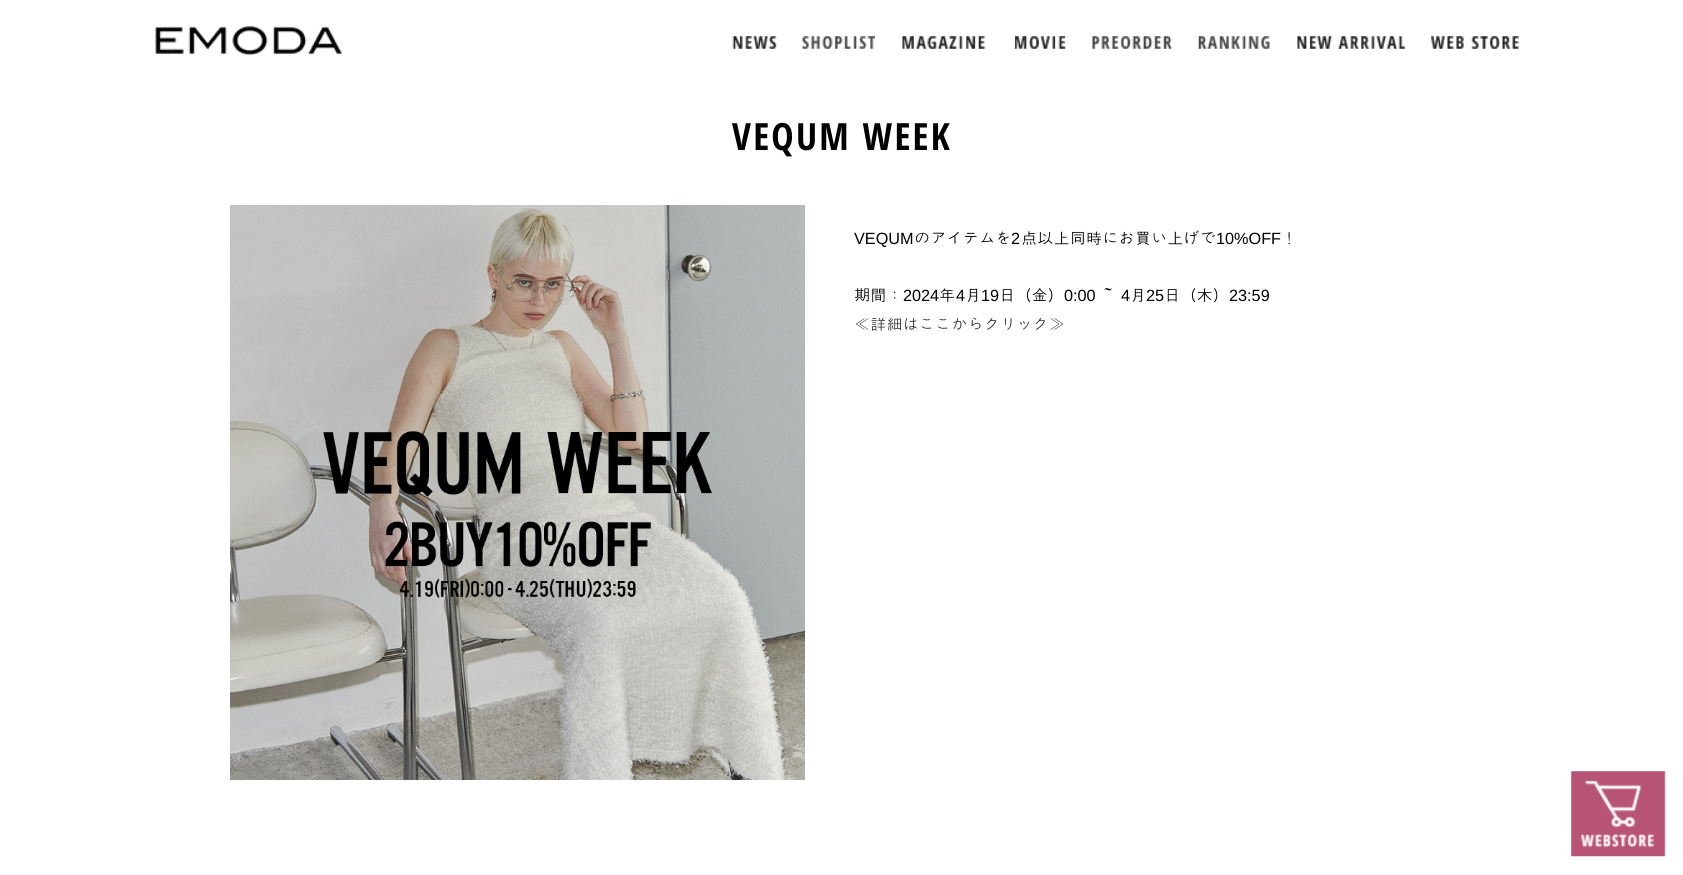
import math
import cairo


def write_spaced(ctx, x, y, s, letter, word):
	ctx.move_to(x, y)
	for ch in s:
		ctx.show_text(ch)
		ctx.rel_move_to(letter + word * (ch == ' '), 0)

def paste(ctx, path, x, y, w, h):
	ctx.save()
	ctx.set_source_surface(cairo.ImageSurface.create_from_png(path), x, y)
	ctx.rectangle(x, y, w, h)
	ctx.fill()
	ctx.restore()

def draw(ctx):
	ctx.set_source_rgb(1, 1, 1)
	ctx.paint()
	paste(ctx, 'media/1.png', 155, 26, 188, 29)
	paste(ctx, 'media/2.png', 732, 36, 45, 13)
	paste(ctx, 'media/3.png', 802, 36, 73, 13)
	paste(ctx, 'media/4.png', 902, 36, 84, 13)
	paste(ctx, 'media/5.png', 1014, 36, 52, 13)
	paste(ctx, 'media/6.png', 1092, 36, 80, 13)
	paste(ctx, 'media/7.png', 1198, 36, 72, 13)
	paste(ctx, 'media/8.png', 1297, 36, 108, 13)
	paste(ctx, 'media/9.png', 1431, 36, 88, 13)
	ctx.select_font_face('Open Sans Condensed', cairo.FONT_SLANT_NORMAL, cairo.FONT_WEIGHT_BOLD)
	ctx.set_font_size(37.5)
	ctx.set_source_rgb(0, 0, 0)
	write_spaced(ctx, 732, 150, 'VEQUM WEEK', 2.25, 0)
	paste(ctx, 'media/10.png', 230, 205, 575, 575)
	ctx.select_font_face('Liberation Sans')
	ctx.set_font_size(16.25)
	ctx.move_to(854, 244)
	ctx.show_text('VEQUM')
	ctx.select_font_face('Gulim')
	ctx.move_to(914, 244)
	ctx.show_text('のアイテムを')
	ctx.select_font_face('Liberation Sans')
	ctx.move_to(1011, 244)
	ctx.show_text('2')
	ctx.select_font_face('Gulim')
	ctx.move_to(1021, 244)
	ctx.show_text('点以上同時にお買い上げで')
	ctx.select_font_face('Liberation Sans')
	ctx.move_to(1216, 244)
	ctx.show_text('10%OFF')
	ctx.select_font_face('Gulim')
	ctx.move_to(1281, 244)
	ctx.show_text('！')
	ctx.move_to(854, 301)
	ctx.show_text('期間：')
	ctx.select_font_face('Liberation Sans')
	ctx.move_to(903, 301)
	ctx.show_text('2024')
	ctx.select_font_face('Gulim')
	ctx.move_to(939, 301)
	ctx.show_text('年')
	ctx.select_font_face('Liberation Sans')
	ctx.move_to(956, 301)
	ctx.show_text('4')
	ctx.select_font_face('Gulim')
	ctx.move_to(965, 301)
	ctx.show_text('月')
	ctx.select_font_face('Liberation Sans')
	ctx.move_to(981, 301)
	ctx.show_text('19')
	ctx.select_font_face('Gulim')
	ctx.move_to(999, 301)
	ctx.show_text('日（金）')
	ctx.select_font_face('Liberation Sans')
	ctx.move_to(1064, 301)
	ctx.show_text('0:00')
	ctx.select_font_face('Gulim')
	ctx.move_to(1100, 301)
	ctx.show_text('～')
	ctx.select_font_face('Liberation Sans')
	ctx.move_to(1121, 301)
	ctx.show_text('4')
	ctx.select_font_face('Gulim')
	ctx.move_to(1130, 301)
	ctx.show_text('月')
	ctx.select_font_face('Liberation Sans')
	ctx.move_to(1146, 301)
	ctx.show_text('25')
	ctx.select_font_face('Gulim')
	ctx.move_to(1164, 301)
	ctx.show_text('日（木）')
	ctx.select_font_face('Liberation Sans')
	ctx.move_to(1229, 301)
	ctx.show_text('23:59')
	ctx.select_font_face('Gulim')
	ctx.set_source_rgb(0.2, 0.2, 0.2)
	ctx.move_to(854, 330)
	ctx.show_text('≪詳細はここからクリック≫')
	ctx.set_source_rgb(0.949, 0.949, 0.949)
	ctx.rectangle(1571, 771, 94, 85)
	ctx.fill()
	paste(ctx, 'media/11.png', 1571, 771, 95, 86)


surface = cairo.ImageSurface(cairo.FORMAT_RGB24, 1683, 875)
ctx = cairo.Context(surface)
options = cairo.FontOptions()
options.set_hint_metrics(cairo.HINT_METRICS_OFF)
options.set_hint_style(cairo.HINT_STYLE_NONE)
ctx.set_font_options(options)
ctx.set_miter_limit(4)
draw(ctx)
surface.write_to_png('image.png')
